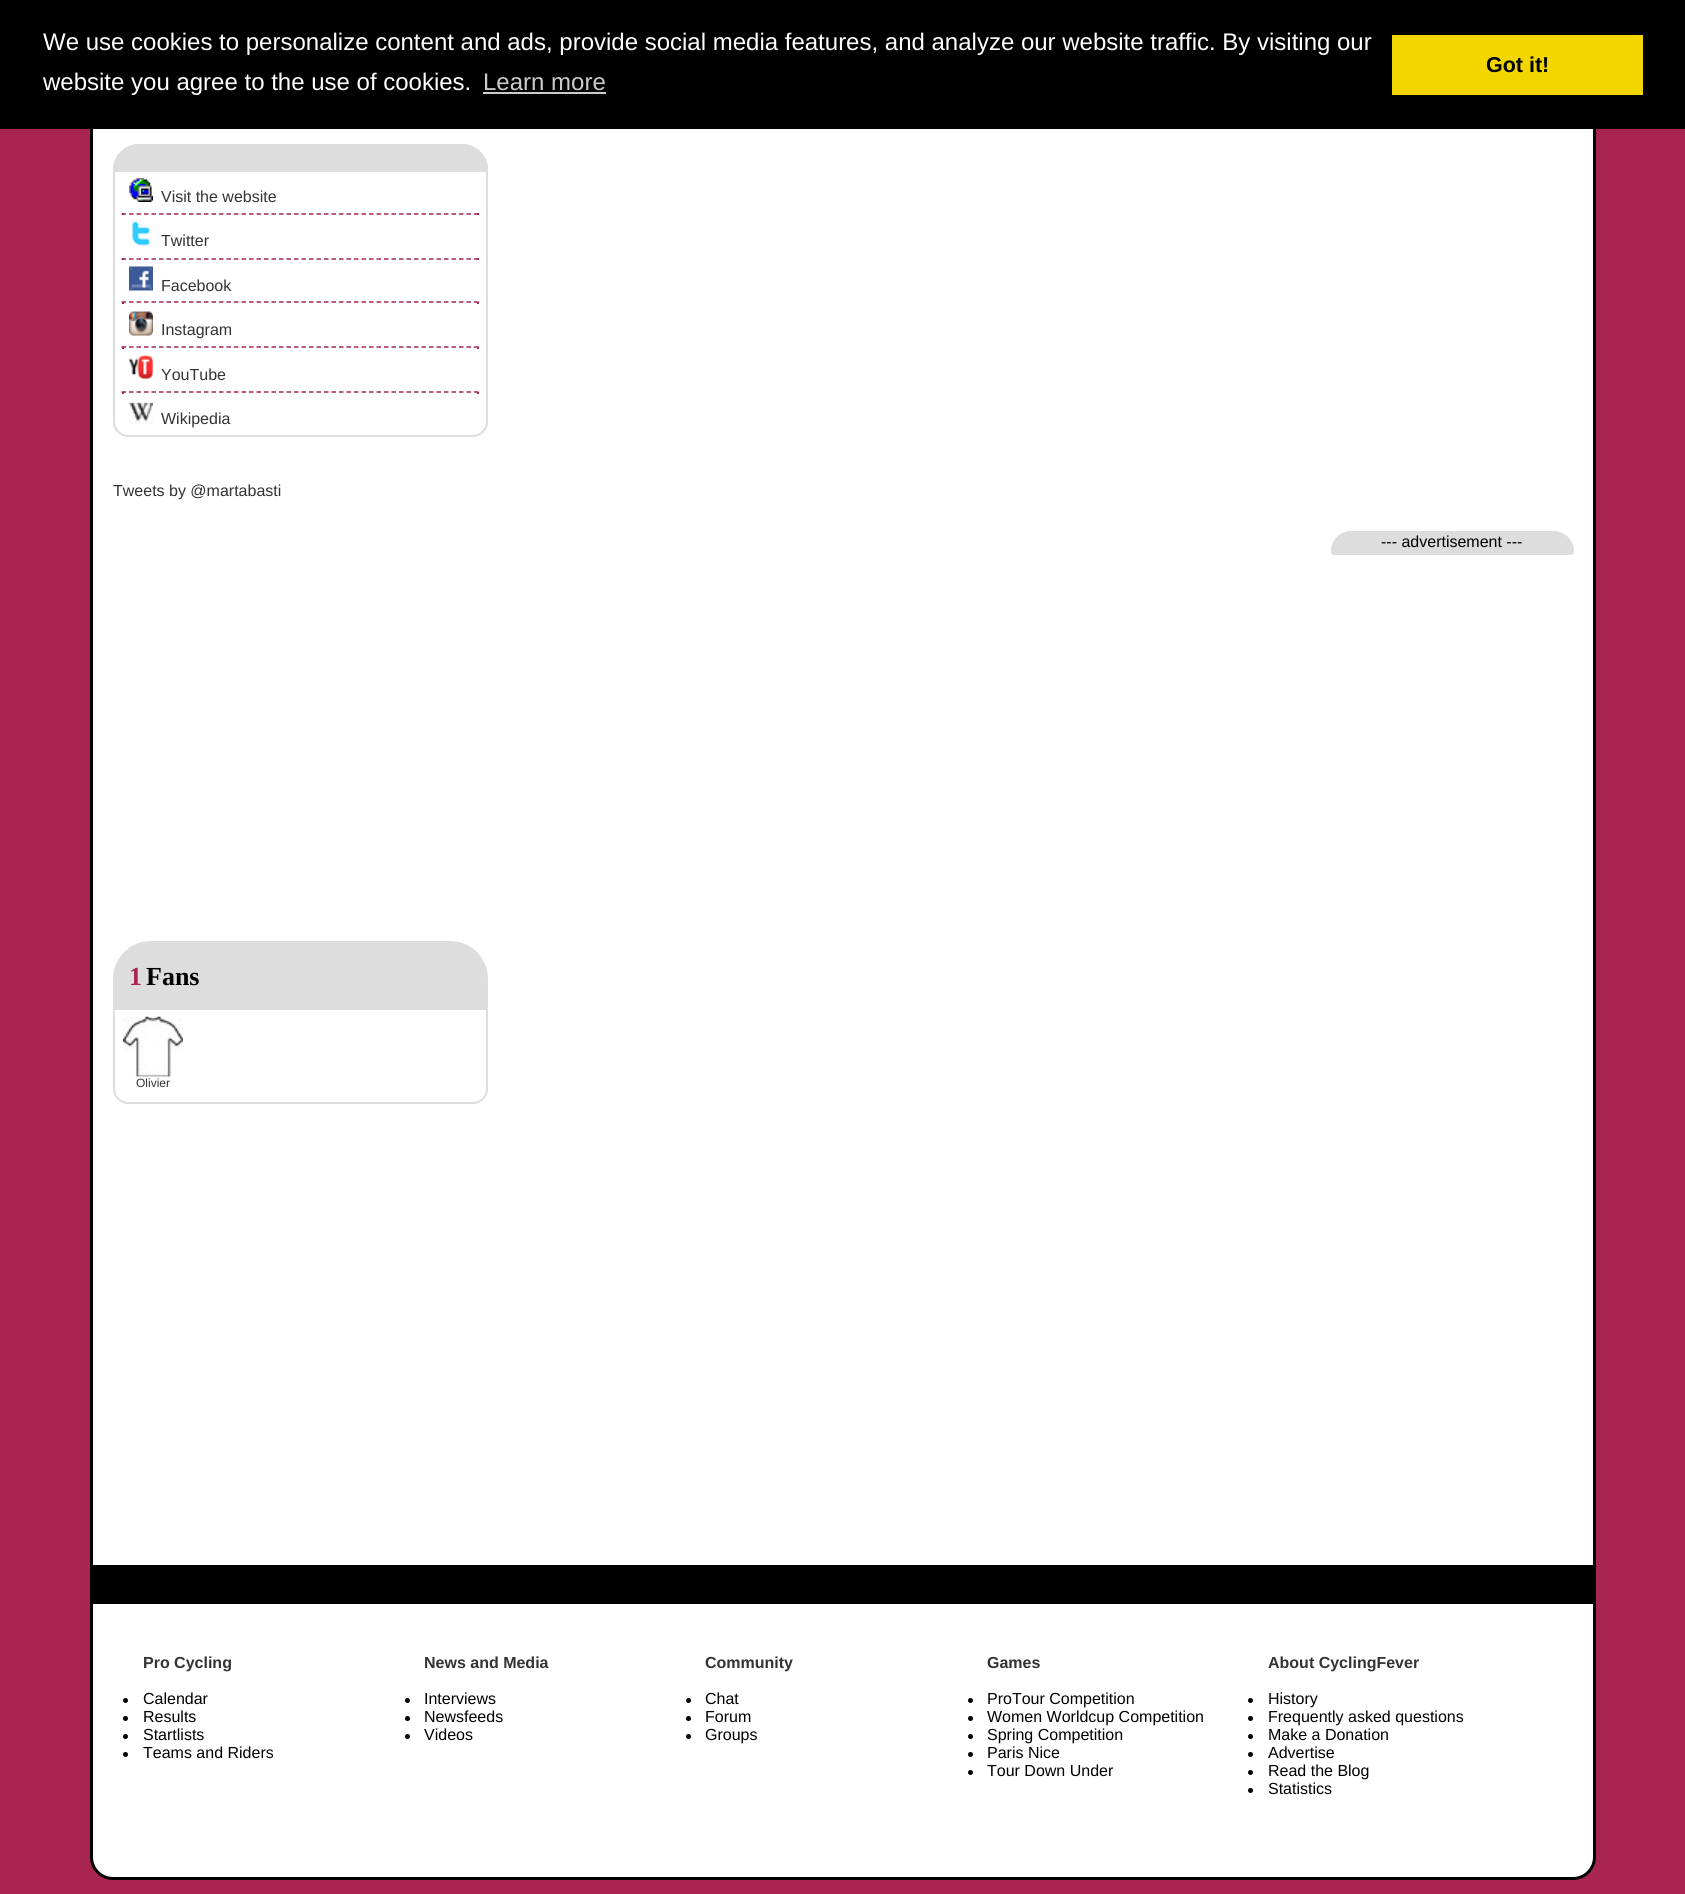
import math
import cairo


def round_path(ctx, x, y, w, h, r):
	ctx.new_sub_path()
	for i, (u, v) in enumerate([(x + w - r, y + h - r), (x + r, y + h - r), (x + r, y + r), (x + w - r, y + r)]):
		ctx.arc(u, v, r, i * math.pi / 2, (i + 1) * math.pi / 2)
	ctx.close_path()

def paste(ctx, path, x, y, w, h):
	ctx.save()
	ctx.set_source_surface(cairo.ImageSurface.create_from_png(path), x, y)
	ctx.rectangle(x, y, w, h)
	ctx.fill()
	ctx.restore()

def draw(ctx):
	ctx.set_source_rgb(0.659, 0.145, 0.318)
	ctx.paint()
	ctx.set_source_rgb(1, 1, 1)
	round_path(ctx, 91.5, -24.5, 1503, 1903, 21.5)
	ctx.fill_preserve()
	ctx.set_source_rgb(0, 0, 0)
	ctx.set_line_width(3)
	ctx.stroke()
	ctx.rectangle(0, 0, 1685, 129)
	ctx.fill()
	ctx.select_font_face('Liberation Sans')
	ctx.set_font_size(24)
	ctx.set_source_rgb(1, 1, 1)
	ctx.move_to(43, 50)
	ctx.show_text('We use cookies to personalize content and ads, provide social media features, and analyze our website traffic. By visiting our')
	ctx.move_to(43, 90)
	ctx.show_text('website you agree to the use of cookies.')
	ctx.set_source_rgb(0.8, 0.8, 0.8)
	ctx.move_to(483, 90)
	ctx.show_text('Learn more')
	ctx.rectangle(483, 92, 123, 2)
	ctx.fill()
	ctx.set_source_rgb(0.945, 0.839, 0)
	ctx.rectangle(1392, 35, 251, 60)
	ctx.fill()
	ctx.select_font_face('Liberation Sans', cairo.FONT_SLANT_NORMAL, cairo.FONT_WEIGHT_BOLD)
	ctx.set_font_size(21.5)
	ctx.set_source_rgb(0, 0, 0)
	ctx.move_to(1486, 72)
	ctx.show_text('Got it!')
	ctx.set_source_rgb(0.867, 0.867, 0.867)
	ctx.new_path()
	ctx.move_to(139, 144)
	ctx.line_to(462, 144)
	ctx.curve_to(476.5, 144, 488, 155.5, 488, 170)
	ctx.line_to(113, 170)
	ctx.curve_to(113, 155.5, 124.5, 144, 139, 144)
	ctx.close_path()
	ctx.fill()
	ctx.set_fill_rule(cairo.FILL_RULE_EVEN_ODD)
	ctx.new_path()
	ctx.move_to(139, 144)
	ctx.curve_to(125, 144, 113, 156, 113, 170)
	ctx.line_to(488, 170)
	ctx.curve_to(488, 156, 476, 144, 462, 144)
	ctx.close_path()
	ctx.move_to(486, 168)
	ctx.line_to(486, 170)
	ctx.close_path()
	ctx.move_to(139, 146)
	ctx.line_to(462, 146)
	ctx.curve_to(475, 146, 485, 156, 486, 168)
	ctx.line_to(115, 168)
	ctx.curve_to(116, 156, 126, 146, 139, 146)
	ctx.close_path()
	ctx.move_to(115, 168)
	ctx.line_to(115, 170)
	ctx.close_path()
	ctx.fill()
	ctx.new_path()
	ctx.move_to(114, 171)
	ctx.line_to(487, 171)
	ctx.line_to(487, 422)
	ctx.curve_to(487, 429.5, 480.5, 436, 473, 436)
	ctx.line_to(128, 436)
	ctx.curve_to(120.5, 436, 114, 429.5, 114, 422)
	ctx.close_path()
	ctx.set_line_width(2)
	ctx.stroke()
	paste(ctx, 'media/1.png', 129, 178, 24, 24)
	ctx.select_font_face('Liberation Sans')
	ctx.set_font_size(16)
	ctx.set_source_rgb(0.2, 0.2, 0.2)
	ctx.move_to(161, 202)
	ctx.show_text('Visit the website')
	ctx.new_path()
	ctx.move_to(121.5, 214)
	ctx.line_to(478.5, 214)
	ctx.set_source_rgb(0.659, 0.145, 0.318)
	ctx.set_line_width(1.5)
	ctx.set_dash([4.5, 3])
	ctx.stroke()
	ctx.rectangle(477, 213, 2, 2)
	ctx.fill()
	ctx.rectangle(122, 213, 2, 2)
	ctx.fill()
	paste(ctx, 'media/2.png', 131, 221, 20, 25)
	ctx.set_source_rgb(0.2, 0.2, 0.2)
	ctx.move_to(161, 246)
	ctx.show_text('Twitter')
	ctx.new_path()
	ctx.move_to(121.5, 259)
	ctx.line_to(478.5, 259)
	ctx.set_source_rgb(0.659, 0.145, 0.318)
	ctx.stroke()
	ctx.rectangle(477, 258, 2, 2)
	ctx.fill()
	ctx.rectangle(122, 258, 2, 2)
	ctx.fill()
	paste(ctx, 'media/3.png', 129, 266, 24, 25)
	ctx.set_source_rgb(0.2, 0.2, 0.2)
	ctx.move_to(161, 291)
	ctx.show_text('Facebook')
	ctx.new_path()
	ctx.move_to(121.5, 302)
	ctx.line_to(478.5, 302)
	ctx.set_source_rgb(0.659, 0.145, 0.318)
	ctx.stroke()
	ctx.rectangle(477, 302, 2, 2)
	ctx.fill()
	ctx.rectangle(122, 302, 2, 2)
	ctx.fill()
	paste(ctx, 'media/4.png', 129, 311, 24, 25)
	ctx.set_source_rgb(0.2, 0.2, 0.2)
	ctx.move_to(161, 335)
	ctx.show_text('Instagram')
	ctx.new_path()
	ctx.move_to(121.5, 347)
	ctx.line_to(478.5, 347)
	ctx.set_source_rgb(0.659, 0.145, 0.318)
	ctx.stroke()
	ctx.rectangle(477, 347, 2, 2)
	ctx.fill()
	ctx.rectangle(122, 347, 2, 2)
	ctx.fill()
	paste(ctx, 'media/5.png', 129, 355, 24, 24)
	ctx.set_source_rgb(0.2, 0.2, 0.2)
	ctx.move_to(161, 380)
	ctx.show_text('YouTube')
	ctx.new_path()
	ctx.move_to(121.5, 392)
	ctx.line_to(478.5, 392)
	ctx.set_source_rgb(0.659, 0.145, 0.318)
	ctx.stroke()
	ctx.rectangle(477, 392, 2, 2)
	ctx.fill()
	ctx.rectangle(122, 392, 2, 2)
	ctx.fill()
	paste(ctx, 'media/6.png', 129, 402, 24, 22)
	ctx.set_source_rgb(0.2, 0.2, 0.2)
	ctx.move_to(161, 424)
	ctx.show_text('Wikipedia')
	ctx.move_to(113, 496)
	ctx.show_text('Tweets by @martabasti')
	ctx.set_source_rgb(0.867, 0.867, 0.867)
	ctx.new_path()
	ctx.move_to(151, 942)
	ctx.line_to(450, 942)
	ctx.curve_to(470.5, 942, 487, 958.5, 487, 979)
	ctx.line_to(487, 1007)
	ctx.line_to(114, 1007)
	ctx.line_to(114, 979)
	ctx.curve_to(114, 958.5, 130.5, 942, 151, 942)
	ctx.close_path()
	ctx.fill_preserve()
	ctx.set_line_width(2)
	ctx.set_dash([])
	ctx.stroke()
	ctx.select_font_face('Liberation Serif', cairo.FONT_SLANT_NORMAL, cairo.FONT_WEIGHT_BOLD)
	ctx.set_font_size(26)
	ctx.set_source_rgb(0.659, 0.145, 0.318)
	ctx.move_to(129, 985)
	ctx.show_text('1')
	ctx.set_source_rgb(0, 0, 0)
	ctx.move_to(146, 985)
	ctx.show_text('Fans')
	ctx.new_path()
	ctx.move_to(114, 1009)
	ctx.line_to(487, 1009)
	ctx.line_to(487, 1089)
	ctx.curve_to(487, 1096.5, 480.5, 1103, 473, 1103)
	ctx.line_to(128, 1103)
	ctx.curve_to(120.5, 1103, 114, 1096.5, 114, 1089)
	ctx.close_path()
	ctx.set_source_rgb(0.867, 0.867, 0.867)
	ctx.stroke()
	paste(ctx, 'media/7.png', 123, 1016, 60, 61)
	ctx.select_font_face('Liberation Sans')
	ctx.set_font_size(12)
	ctx.set_source_rgb(0.2, 0.2, 0.2)
	ctx.move_to(136, 1087)
	ctx.show_text('Olivier')
	ctx.set_source_rgb(0.867, 0.867, 0.867)
	ctx.new_path()
	ctx.move_to(1352, 531)
	ctx.line_to(1553, 531)
	ctx.curve_to(1564.5, 531, 1574, 540.5, 1574, 552)
	ctx.line_to(1331, 552)
	ctx.curve_to(1331, 540.5, 1340.5, 531, 1352, 531)
	ctx.close_path()
	ctx.fill()
	ctx.new_path()
	ctx.move_to(1352, 531)
	ctx.curve_to(1340, 531, 1331, 540, 1331, 552)
	ctx.line_to(1574, 552)
	ctx.curve_to(1574, 540, 1565, 531, 1553, 531)
	ctx.close_path()
	ctx.move_to(1572, 550)
	ctx.line_to(1572, 552)
	ctx.close_path()
	ctx.move_to(1352, 533)
	ctx.line_to(1553, 533)
	ctx.curve_to(1563, 533, 1571, 540, 1572, 550)
	ctx.line_to(1333, 550)
	ctx.curve_to(1334, 540, 1342, 533, 1352, 533)
	ctx.close_path()
	ctx.move_to(1333, 550)
	ctx.line_to(1333, 552)
	ctx.close_path()
	ctx.fill()
	ctx.set_font_size(16)
	ctx.set_source_rgb(0, 0, 0)
	ctx.move_to(1381, 547)
	ctx.show_text('--- advertisement ---')
	ctx.set_source_rgb(0.867, 0.867, 0.867)
	ctx.new_path()
	ctx.move_to(1331, 552)
	ctx.line_to(1574, 552)
	ctx.curve_to(1574, 553.5, 1572.5, 555, 1571, 555)
	ctx.line_to(1334, 555)
	ctx.curve_to(1332.5, 555, 1331, 553.5, 1331, 552)
	ctx.close_path()
	ctx.fill()
	ctx.set_source_rgb(0, 0, 0)
	ctx.rectangle(93, 1565, 1500, 39)
	ctx.fill()
	ctx.select_font_face('Liberation Sans', cairo.FONT_SLANT_NORMAL, cairo.FONT_WEIGHT_BOLD)
	ctx.set_source_rgb(0.2, 0.2, 0.2)
	ctx.move_to(143, 1668)
	ctx.show_text('Pro Cycling')
	ctx.set_source_rgb(0, 0, 0)
	ctx.new_path()
	ctx.arc(125.5, 1700.5, 2.5, 0, 2 * math.pi)
	ctx.fill()
	ctx.select_font_face('Liberation Sans')
	ctx.move_to(143, 1704)
	ctx.show_text('Calendar')
	ctx.new_path()
	ctx.arc(125.5, 1718.5, 2.5, 0, 2 * math.pi)
	ctx.fill()
	ctx.move_to(143, 1722)
	ctx.show_text('Results')
	ctx.new_path()
	ctx.arc(125.5, 1736.5, 2.5, 0, 2 * math.pi)
	ctx.fill()
	ctx.move_to(143, 1740)
	ctx.show_text('Startlists')
	ctx.new_path()
	ctx.arc(125.5, 1754.5, 2.5, 0, 2 * math.pi)
	ctx.fill()
	ctx.move_to(143, 1758)
	ctx.show_text('Teams and Riders')
	ctx.select_font_face('Liberation Sans', cairo.FONT_SLANT_NORMAL, cairo.FONT_WEIGHT_BOLD)
	ctx.set_source_rgb(0.2, 0.2, 0.2)
	ctx.move_to(424, 1668)
	ctx.show_text('News and Media')
	ctx.set_source_rgb(0, 0, 0)
	ctx.new_path()
	ctx.arc(407.5, 1700.5, 2.5, 0, 2 * math.pi)
	ctx.fill()
	ctx.select_font_face('Liberation Sans')
	ctx.move_to(424, 1704)
	ctx.show_text('Interviews')
	ctx.new_path()
	ctx.arc(407.5, 1718.5, 2.5, 0, 2 * math.pi)
	ctx.fill()
	ctx.move_to(424, 1722)
	ctx.show_text('Newsfeeds')
	ctx.new_path()
	ctx.arc(407.5, 1736.5, 2.5, 0, 2 * math.pi)
	ctx.fill()
	ctx.move_to(424, 1740)
	ctx.show_text('Videos')
	ctx.select_font_face('Liberation Sans', cairo.FONT_SLANT_NORMAL, cairo.FONT_WEIGHT_BOLD)
	ctx.set_source_rgb(0.2, 0.2, 0.2)
	ctx.move_to(705, 1668)
	ctx.show_text('Community')
	ctx.set_source_rgb(0, 0, 0)
	ctx.new_path()
	ctx.arc(688.5, 1700.5, 2.5, 0, 2 * math.pi)
	ctx.fill()
	ctx.select_font_face('Liberation Sans')
	ctx.move_to(705, 1704)
	ctx.show_text('Chat')
	ctx.new_path()
	ctx.arc(688.5, 1718.5, 2.5, 0, 2 * math.pi)
	ctx.fill()
	ctx.move_to(705, 1722)
	ctx.show_text('Forum')
	ctx.new_path()
	ctx.arc(688.5, 1736.5, 2.5, 0, 2 * math.pi)
	ctx.fill()
	ctx.move_to(705, 1740)
	ctx.show_text('Groups')
	ctx.select_font_face('Liberation Sans', cairo.FONT_SLANT_NORMAL, cairo.FONT_WEIGHT_BOLD)
	ctx.set_source_rgb(0.2, 0.2, 0.2)
	ctx.move_to(987, 1668)
	ctx.show_text('Games')
	ctx.set_source_rgb(0, 0, 0)
	ctx.new_path()
	ctx.arc(970.5, 1700.5, 2.5, 0, 2 * math.pi)
	ctx.fill()
	ctx.select_font_face('Liberation Sans')
	ctx.move_to(987, 1704)
	ctx.show_text('ProTour Competition')
	ctx.new_path()
	ctx.arc(970.5, 1718.5, 2.5, 0, 2 * math.pi)
	ctx.fill()
	ctx.move_to(987, 1722)
	ctx.show_text('Women Worldcup Competition')
	ctx.new_path()
	ctx.arc(970.5, 1736.5, 2.5, 0, 2 * math.pi)
	ctx.fill()
	ctx.move_to(987, 1740)
	ctx.show_text('Spring Competition')
	ctx.new_path()
	ctx.arc(970.5, 1754.5, 2.5, 0, 2 * math.pi)
	ctx.fill()
	ctx.move_to(987, 1758)
	ctx.show_text('Paris Nice')
	ctx.new_path()
	ctx.arc(970.5, 1772.5, 2.5, 0, 2 * math.pi)
	ctx.fill()
	ctx.move_to(987, 1776)
	ctx.show_text('Tour Down Under')
	ctx.select_font_face('Liberation Sans', cairo.FONT_SLANT_NORMAL, cairo.FONT_WEIGHT_BOLD)
	ctx.set_source_rgb(0.2, 0.2, 0.2)
	ctx.move_to(1268, 1668)
	ctx.show_text('About CyclingFever')
	ctx.set_source_rgb(0, 0, 0)
	ctx.new_path()
	ctx.arc(1250.5, 1700.5, 2.5, 0, 2 * math.pi)
	ctx.fill()
	ctx.select_font_face('Liberation Sans')
	ctx.move_to(1268, 1704)
	ctx.show_text('History')
	ctx.new_path()
	ctx.arc(1250.5, 1718.5, 2.5, 0, 2 * math.pi)
	ctx.fill()
	ctx.move_to(1268, 1722)
	ctx.show_text('Frequently asked questions')
	ctx.new_path()
	ctx.arc(1250.5, 1736.5, 2.5, 0, 2 * math.pi)
	ctx.fill()
	ctx.move_to(1268, 1740)
	ctx.show_text('Make a Donation')
	ctx.new_path()
	ctx.arc(1250.5, 1754.5, 2.5, 0, 2 * math.pi)
	ctx.fill()
	ctx.move_to(1268, 1758)
	ctx.show_text('Advertise')
	ctx.new_path()
	ctx.arc(1250.5, 1772.5, 2.5, 0, 2 * math.pi)
	ctx.fill()
	ctx.move_to(1268, 1776)
	ctx.show_text('Read the Blog')
	ctx.new_path()
	ctx.arc(1250.5, 1790.5, 2.5, 0, 2 * math.pi)
	ctx.fill()
	ctx.move_to(1268, 1794)
	ctx.show_text('Statistics')


surface = cairo.ImageSurface(cairo.FORMAT_RGB24, 1685, 1894)
ctx = cairo.Context(surface)
options = cairo.FontOptions()
options.set_hint_metrics(cairo.HINT_METRICS_OFF)
options.set_hint_style(cairo.HINT_STYLE_NONE)
ctx.set_font_options(options)
ctx.set_miter_limit(4)
draw(ctx)
surface.write_to_png('image.png')
